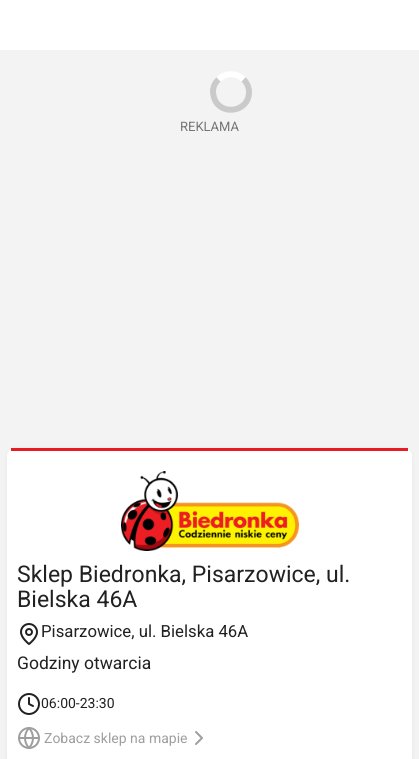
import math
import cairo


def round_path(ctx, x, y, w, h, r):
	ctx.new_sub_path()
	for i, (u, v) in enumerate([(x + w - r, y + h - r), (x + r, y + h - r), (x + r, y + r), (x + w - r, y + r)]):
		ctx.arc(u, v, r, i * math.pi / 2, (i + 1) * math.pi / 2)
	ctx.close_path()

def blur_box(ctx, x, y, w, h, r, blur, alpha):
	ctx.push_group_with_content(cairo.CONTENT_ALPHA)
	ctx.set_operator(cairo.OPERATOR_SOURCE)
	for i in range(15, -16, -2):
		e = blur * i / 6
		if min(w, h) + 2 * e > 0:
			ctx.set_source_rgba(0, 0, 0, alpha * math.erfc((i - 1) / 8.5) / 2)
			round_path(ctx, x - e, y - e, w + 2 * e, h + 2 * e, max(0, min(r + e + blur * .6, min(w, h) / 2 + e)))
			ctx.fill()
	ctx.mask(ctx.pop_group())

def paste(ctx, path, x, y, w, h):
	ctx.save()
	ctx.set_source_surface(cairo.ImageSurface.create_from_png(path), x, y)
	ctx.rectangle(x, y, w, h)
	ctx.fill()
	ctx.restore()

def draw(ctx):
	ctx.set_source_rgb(0.953, 0.953, 0.953)
	ctx.paint()
	ctx.set_source_rgb(1, 1, 1)
	ctx.rectangle(0, 0, 419, 50)
	ctx.fill()
	ctx.new_path()
	ctx.move_to(218.5, 79.5)
	ctx.curve_to(225, 72.5, 237, 72.5, 243.5, 79.5)
	ctx.set_line_width(6)
	ctx.stroke()
	ctx.new_path()
	ctx.move_to(243.5, 79.5)
	ctx.curve_to(247, 82.5, 249, 87.5, 249, 92)
	ctx.curve_to(249, 113.5, 217.5, 116.5, 213.5, 95.5)
	ctx.curve_to(212, 89.5, 214, 83.5, 218.5, 79.5)
	ctx.set_source_rgba(0.502, 0.502, 0.502, 0.35)
	ctx.stroke()
	ctx.select_font_face('Roboto')
	ctx.set_font_size(13)
	ctx.set_source_rgb(0.459, 0.459, 0.459)
	ctx.move_to(180, 131)
	ctx.show_text('REKLAMA')
	ctx.set_source_rgb(0, 0, 0)
	blur_box(ctx, 7, 449, 405, 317, 8, 2, 0.06)
	ctx.set_source_rgb(1, 1, 1)
	round_path(ctx, 7, 448, 405, 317, 8)
	ctx.fill()
	ctx.set_source_rgb(0.898, 0.11, 0.141)
	ctx.rectangle(11, 448, 397, 3)
	ctx.fill()
	paste(ctx, 'media/1.png', 121, 471, 178, 80)
	ctx.set_font_size(23)
	ctx.set_source_rgb(0.129, 0.129, 0.129)
	ctx.move_to(17, 582)
	ctx.show_text('Sklep Biedronka, Pisarzowice, ul.')
	ctx.move_to(17, 607)
	ctx.show_text('Bielska 46A')
	paste(ctx, 'media/2.png', 20, 623, 18, 22)
	ctx.set_font_size(16.75)
	ctx.move_to(41, 637)
	ctx.show_text('Pisarzowice, ul. Bielska 46A')
	ctx.set_font_size(17.5)
	ctx.move_to(17, 669)
	ctx.show_text('Godziny otwarcia')
	ctx.new_path()
	ctx.arc(29, 704, 10, 0, 2 * math.pi)
	ctx.set_line_width(2)
	ctx.stroke()
	ctx.new_path()
	ctx.move_to(29, 698)
	ctx.line_to(29, 704)
	ctx.line_to(33, 706)
	ctx.set_line_cap(cairo.LINE_CAP_ROUND)
	ctx.set_line_join(cairo.LINE_JOIN_ROUND)
	ctx.stroke()
	ctx.set_font_size(14)
	ctx.move_to(41, 708)
	ctx.show_text('06:00-23:30')
	paste(ctx, 'media/3.png', 18, 727, 22, 22)
	ctx.set_source_rgb(0.62, 0.62, 0.62)
	ctx.move_to(44, 743)
	ctx.show_text('Zobacz sklep na mapie')
	ctx.new_path()
	ctx.move_to(196, 744)
	ctx.line_to(202, 738)
	ctx.line_to(196, 732)
	ctx.stroke()


surface = cairo.ImageSurface(cairo.FORMAT_RGB24, 419, 759)
ctx = cairo.Context(surface)
options = cairo.FontOptions()
options.set_hint_metrics(cairo.HINT_METRICS_OFF)
options.set_hint_style(cairo.HINT_STYLE_NONE)
ctx.set_font_options(options)
ctx.set_miter_limit(4)
draw(ctx)
surface.write_to_png('image.png')
